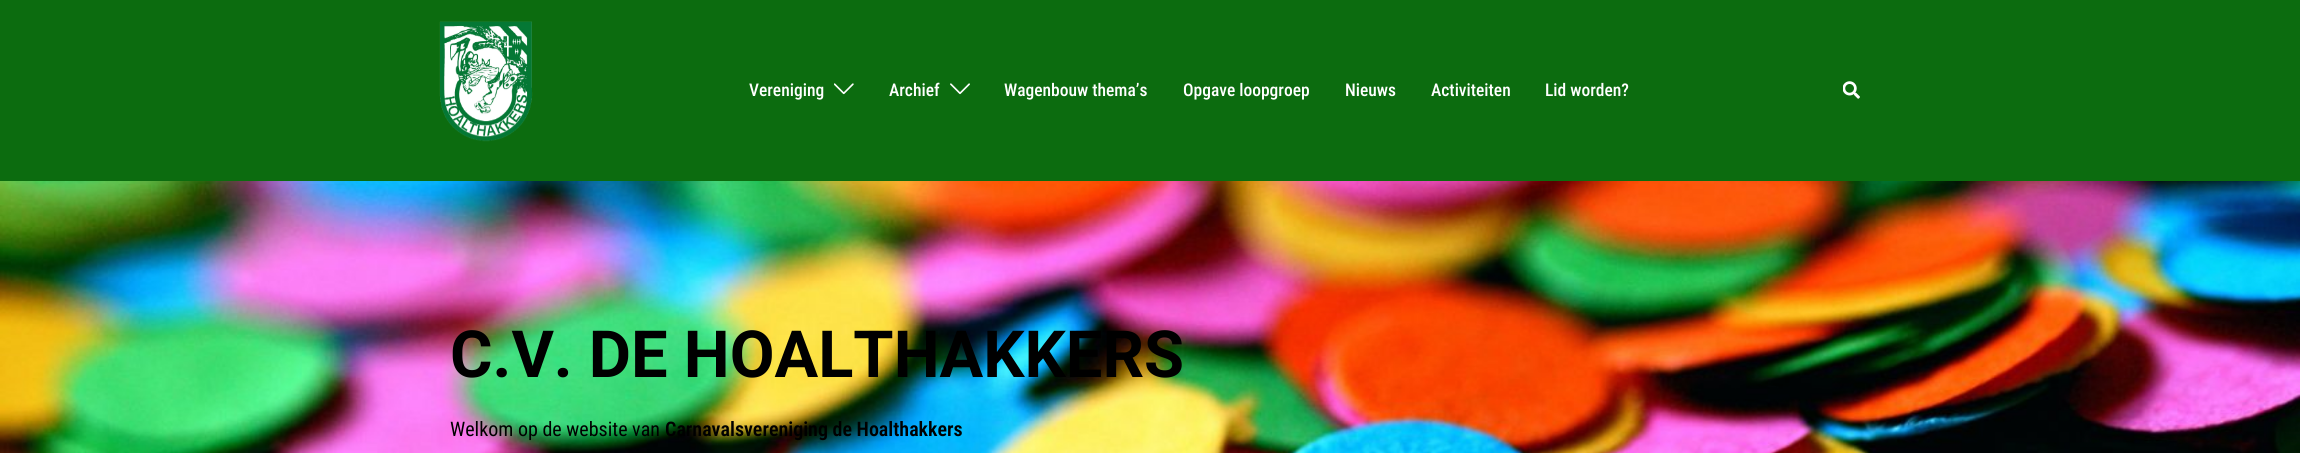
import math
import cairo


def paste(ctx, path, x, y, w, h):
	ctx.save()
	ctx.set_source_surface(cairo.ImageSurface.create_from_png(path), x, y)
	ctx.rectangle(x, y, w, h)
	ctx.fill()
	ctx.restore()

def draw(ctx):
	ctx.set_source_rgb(1, 1, 1)
	ctx.paint()
	paste(ctx, 'media/1.png', 0, 181, 2300, 272)
	ctx.set_source_rgb(0.047, 0.424, 0.059)
	ctx.rectangle(0, 0, 2300, 181)
	ctx.fill()
	paste(ctx, 'media/2.png', 439, 21, 94, 121)
	ctx.select_font_face('Roboto Condensed Medium')
	ctx.set_font_size(17.5)
	ctx.set_source_rgb(1, 1, 1)
	ctx.move_to(749, 96)
	ctx.show_text('Vereniging')
	paste(ctx, 'media/3.png', 834, 83, 20, 12)
	ctx.move_to(889, 96)
	ctx.show_text('Archief')
	paste(ctx, 'media/4.png', 950, 83, 20, 12)
	for x, y, s in [
		(1004, 96, 'Wagenbouw thema’s'),
		(1183, 96, 'Opgave loopgroep'),
		(1345, 96, 'Nieuws'),
		(1431, 96, 'Activiteiten'),
		(1545, 96, 'Lid worden?'),
	]:
		ctx.move_to(x, y)
		ctx.show_text(s)
	paste(ctx, 'media/5.png', 1843, 81, 17, 18)
	ctx.select_font_face('Roboto', cairo.FONT_SLANT_NORMAL, cairo.FONT_WEIGHT_BOLD)
	ctx.set_font_size(65)
	ctx.set_source_rgb(0, 0, 0)
	ctx.move_to(450, 377)
	ctx.show_text('C.V. DE HOALTHAKKERS')
	ctx.select_font_face('Roboto Condensed')
	ctx.set_font_size(20)
	ctx.move_to(450, 436)
	ctx.show_text('Welkom op de website van')
	ctx.select_font_face('Roboto Condensed SemiBold')
	ctx.move_to(665, 436)
	ctx.show_text('Carnavalsvereniging de Hoalthakkers')


surface = cairo.ImageSurface(cairo.FORMAT_RGB24, 2300, 453)
ctx = cairo.Context(surface)
options = cairo.FontOptions()
options.set_hint_metrics(cairo.HINT_METRICS_OFF)
options.set_hint_style(cairo.HINT_STYLE_NONE)
ctx.set_font_options(options)
ctx.set_miter_limit(4)
draw(ctx)
surface.write_to_png('image.png')
